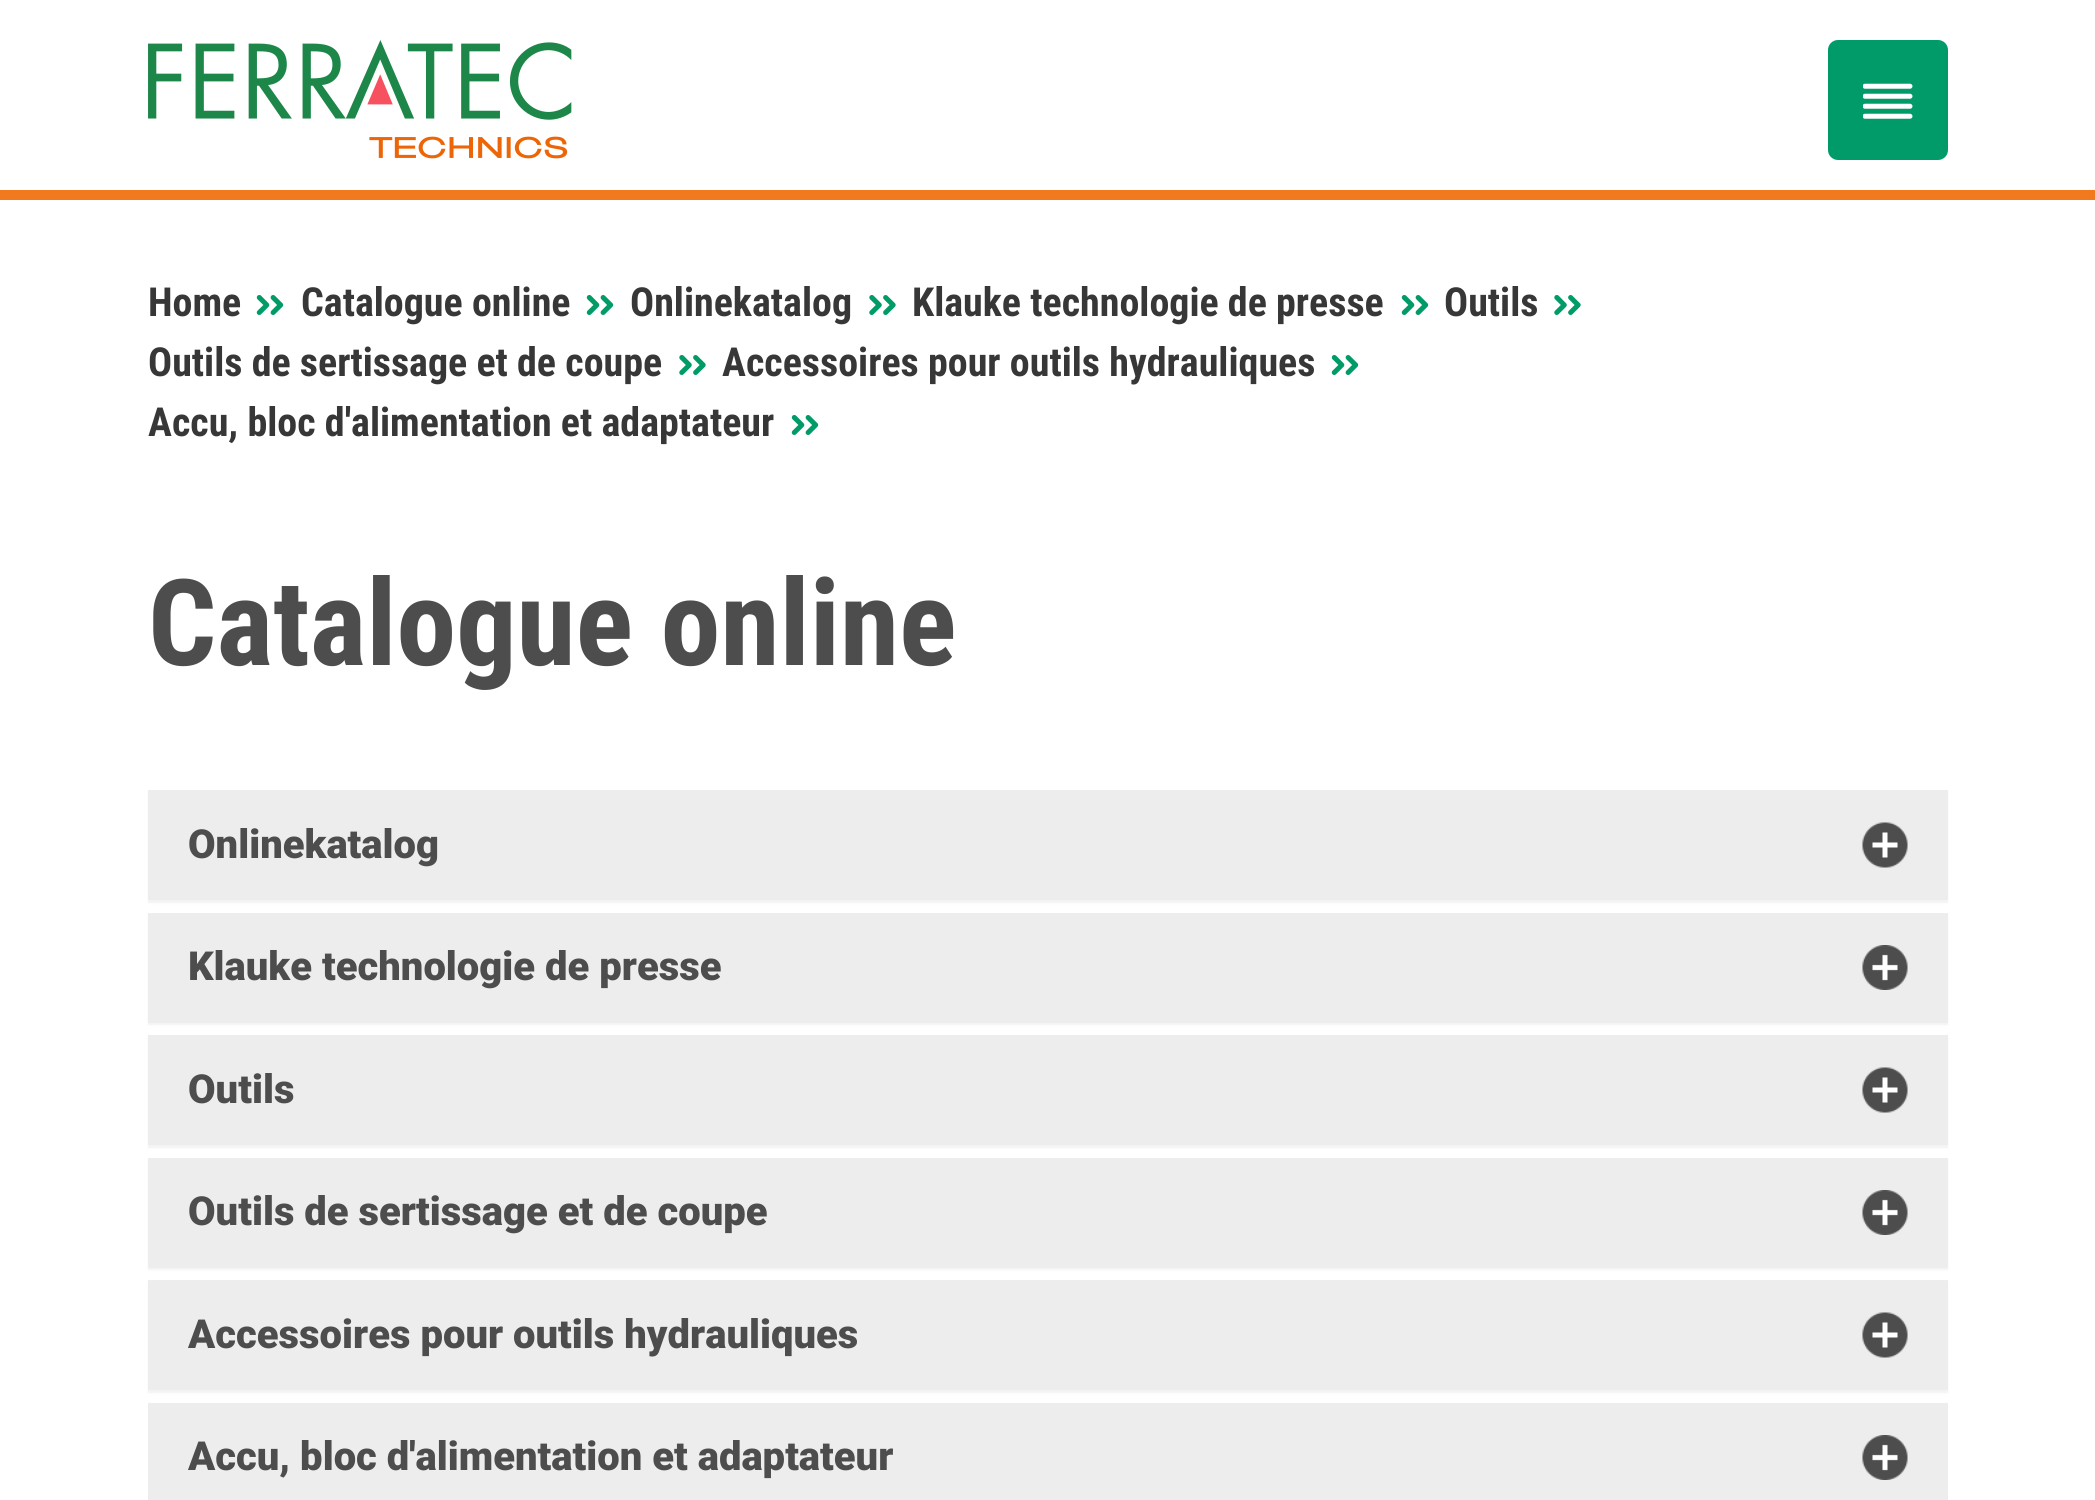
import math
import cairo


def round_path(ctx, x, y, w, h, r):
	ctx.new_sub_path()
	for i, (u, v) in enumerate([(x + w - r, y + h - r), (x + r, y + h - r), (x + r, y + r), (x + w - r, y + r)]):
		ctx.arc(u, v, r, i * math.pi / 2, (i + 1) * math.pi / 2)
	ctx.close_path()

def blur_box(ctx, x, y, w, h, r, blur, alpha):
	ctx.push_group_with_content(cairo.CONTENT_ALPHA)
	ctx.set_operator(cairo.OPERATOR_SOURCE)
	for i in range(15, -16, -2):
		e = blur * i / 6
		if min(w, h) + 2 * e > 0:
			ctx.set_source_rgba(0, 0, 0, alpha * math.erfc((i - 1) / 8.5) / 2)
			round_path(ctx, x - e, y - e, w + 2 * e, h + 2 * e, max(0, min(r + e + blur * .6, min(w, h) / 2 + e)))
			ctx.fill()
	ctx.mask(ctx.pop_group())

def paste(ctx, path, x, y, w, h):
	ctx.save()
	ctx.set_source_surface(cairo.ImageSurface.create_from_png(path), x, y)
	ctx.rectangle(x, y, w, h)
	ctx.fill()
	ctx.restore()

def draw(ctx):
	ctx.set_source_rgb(1, 1, 1)
	ctx.paint()
	paste(ctx, 'media/1.png', 148, 40, 424, 119)
	ctx.set_source_rgb(0, 0.608, 0.408)
	round_path(ctx, 1828, 40, 120, 120, 10)
	ctx.fill()
	paste(ctx, 'media/2.png', 1863, 83, 50, 36)
	ctx.set_source_rgb(0.949, 0.478, 0.118)
	ctx.rectangle(0, 190, 2095, 10)
	ctx.fill()
	ctx.select_font_face('Roboto Condensed', cairo.FONT_SLANT_NORMAL, cairo.FONT_WEIGHT_BOLD)
	ctx.set_font_size(40)
	ctx.set_source_rgb(0.216, 0.216, 0.216)
	ctx.move_to(148, 316)
	ctx.show_text('Home')
	paste(ctx, 'media/3.png', 256, 295, 28, 20)
	ctx.move_to(301, 316)
	ctx.show_text('Catalogue online')
	paste(ctx, 'media/3.png', 586, 295, 28, 20)
	ctx.move_to(630, 316)
	ctx.show_text('Onlinekatalog')
	paste(ctx, 'media/4.png', 869, 295, 27, 20)
	ctx.move_to(912, 316)
	ctx.show_text('Klauke technologie de presse')
	paste(ctx, 'media/3.png', 1401, 295, 28, 20)
	ctx.move_to(1444, 316)
	ctx.show_text('Outils')
	paste(ctx, 'media/4.png', 1554, 295, 27, 20)
	ctx.move_to(148, 376)
	ctx.show_text('Outils de sertissage et de coupe')
	paste(ctx, 'media/4.png', 679, 355, 27, 20)
	ctx.move_to(722, 376)
	ctx.show_text('Accessoires pour outils hydrauliques')
	paste(ctx, 'media/3.png', 1331, 355, 28, 20)
	ctx.move_to(148, 436)
	ctx.show_text('Accu, bloc d\'alimentation et adaptateur')
	paste(ctx, 'media/3.png', 791, 415, 28, 20)
	ctx.set_font_size(120)
	ctx.set_source_rgb(0.302, 0.302, 0.302)
	ctx.move_to(148, 665)
	ctx.show_text('Catalogue online')
	ctx.set_source_rgb(0, 0, 0)
	blur_box(ctx, 148, 793, 1800, 110, 0, 1, 0.05)
	ctx.rectangle(149.5, 791.5, 1797, 107)
	ctx.set_source_rgb(0.929, 0.929, 0.929)
	ctx.set_line_width(3)
	ctx.stroke()
	ctx.rectangle(151, 793, 1794, 104)
	ctx.fill()
	paste(ctx, 'media/5.png', 1862, 822, 46, 46)
	ctx.select_font_face('Roboto Black')
	ctx.set_font_size(40)
	ctx.set_source_rgb(0.302, 0.302, 0.302)
	ctx.move_to(188, 858)
	ctx.show_text('Onlinekatalog')
	ctx.set_source_rgb(0, 0, 0)
	blur_box(ctx, 148, 915, 1800, 110, 0, 1, 0.05)
	ctx.rectangle(149.5, 914.5, 1797, 107)
	ctx.set_source_rgb(0.929, 0.929, 0.929)
	ctx.stroke()
	ctx.rectangle(151, 916, 1794, 104)
	ctx.fill()
	paste(ctx, 'media/6.png', 1862, 945, 46, 45)
	ctx.set_source_rgb(0.302, 0.302, 0.302)
	ctx.move_to(188, 980)
	ctx.show_text('Klauke technologie de presse')
	ctx.set_source_rgb(0, 0, 0)
	blur_box(ctx, 148, 1038, 1800, 110, 0, 1, 0.05)
	ctx.rectangle(149.5, 1036.5, 1797, 107)
	ctx.set_source_rgb(0.929, 0.929, 0.929)
	ctx.stroke()
	ctx.rectangle(151, 1038, 1794, 104)
	ctx.fill()
	paste(ctx, 'media/5.png', 1862, 1067, 46, 46)
	ctx.set_source_rgb(0.302, 0.302, 0.302)
	ctx.move_to(188, 1103)
	ctx.show_text('Outils')
	ctx.set_source_rgb(0, 0, 0)
	blur_box(ctx, 148, 1160, 1800, 110, 0, 1, 0.05)
	ctx.rectangle(149.5, 1159.5, 1797, 107)
	ctx.set_source_rgb(0.929, 0.929, 0.929)
	ctx.stroke()
	ctx.rectangle(151, 1161, 1794, 104)
	ctx.fill()
	paste(ctx, 'media/6.png', 1862, 1190, 46, 45)
	ctx.set_source_rgb(0.302, 0.302, 0.302)
	ctx.move_to(188, 1225)
	ctx.show_text('Outils de sertissage et de coupe')
	ctx.set_source_rgb(0, 0, 0)
	blur_box(ctx, 148, 1283, 1800, 110, 0, 1, 0.05)
	ctx.rectangle(149.5, 1281.5, 1797, 107)
	ctx.set_source_rgb(0.929, 0.929, 0.929)
	ctx.stroke()
	ctx.rectangle(151, 1283, 1794, 104)
	ctx.fill()
	paste(ctx, 'media/5.png', 1862, 1312, 46, 46)
	ctx.set_source_rgb(0.302, 0.302, 0.302)
	ctx.move_to(188, 1348)
	ctx.show_text('Accessoires pour outils hydrauliques')
	ctx.rectangle(149.5, 1404.5, 1797, 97)
	ctx.set_source_rgb(0.929, 0.929, 0.929)
	ctx.stroke()
	ctx.rectangle(151, 1406, 1794, 94)
	ctx.fill()
	paste(ctx, 'media/6.png', 1862, 1435, 46, 45)
	ctx.set_source_rgb(0.302, 0.302, 0.302)
	ctx.move_to(188, 1470)
	ctx.show_text('Accu, bloc d\'alimentation et adaptateur')


surface = cairo.ImageSurface(cairo.FORMAT_RGB24, 2095, 1500)
ctx = cairo.Context(surface)
options = cairo.FontOptions()
options.set_hint_metrics(cairo.HINT_METRICS_OFF)
options.set_hint_style(cairo.HINT_STYLE_NONE)
ctx.set_font_options(options)
ctx.set_miter_limit(4)
draw(ctx)
surface.write_to_png('image.png')
